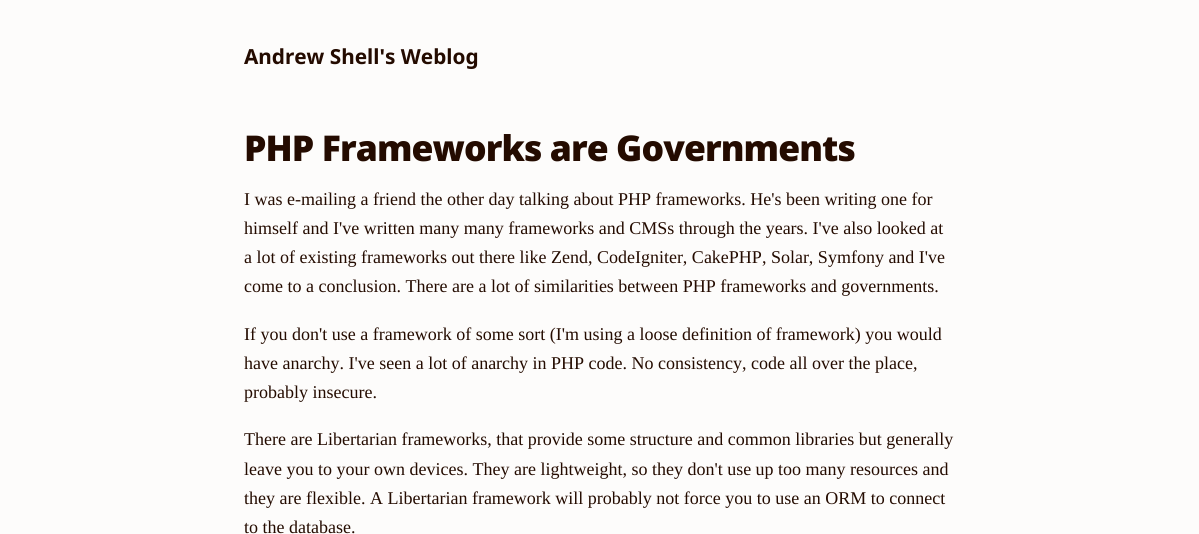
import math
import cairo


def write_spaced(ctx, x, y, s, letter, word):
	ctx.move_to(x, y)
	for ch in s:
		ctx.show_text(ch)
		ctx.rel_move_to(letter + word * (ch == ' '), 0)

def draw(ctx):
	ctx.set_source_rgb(0.992, 0.988, 0.984)
	ctx.paint()
	ctx.select_font_face('Noto Sans', cairo.FONT_SLANT_NORMAL, cairo.FONT_WEIGHT_BOLD)
	ctx.set_font_size(20.75)
	ctx.set_source_rgb(0.141, 0.043, 0)
	ctx.move_to(244, 64)
	ctx.show_text('Andrew Shell\'s Weblog')
	ctx.select_font_face('Noto Sans Black')
	ctx.set_font_size(35.5)
	write_spaced(ctx, 244, 161, 'PHP Frameworks are Governments', -0.9, 0)
	ctx.select_font_face('Liberation Serif')
	ctx.set_font_size(18)
	for x, y, s in [
		(244, 205, 'I was e-mailing a friend the other day talking about PHP frameworks. He\'s been writing one for'),
		(244, 234, 'himself and I\'ve written many many frameworks and CMSs through the years. I\'ve also looked at'),
		(244, 263, 'a lot of existing frameworks out there like Zend, CodeIgniter, CakePHP, Solar, Symfony and I\'ve'),
		(244, 292, 'come to a conclusion. There are a lot of similarities between PHP frameworks and governments.'),
		(244, 340, 'If you don\'t use a framework of some sort (I\'m using a loose definition of framework) you would'),
		(244, 369, 'have anarchy. I\'ve seen a lot of anarchy in PHP code. No consistency, code all over the place,'),
		(244, 398, 'probably insecure.'),
		(244, 445, 'There are Libertarian frameworks, that provide some structure and common libraries but generally'),
		(244, 475, 'leave you to your own devices. They are lightweight, so they don\'t use up too many resources and'),
		(244, 504, 'they are flexible. A Libertarian framework will probably not force you to use an ORM to connect'),
		(244, 533, 'to the database.'),
	]:
		ctx.move_to(x, y)
		ctx.show_text(s)


surface = cairo.ImageSurface(cairo.FORMAT_RGB24, 1199, 534)
ctx = cairo.Context(surface)
options = cairo.FontOptions()
options.set_hint_metrics(cairo.HINT_METRICS_OFF)
options.set_hint_style(cairo.HINT_STYLE_NONE)
ctx.set_font_options(options)
ctx.set_miter_limit(4)
draw(ctx)
surface.write_to_png('image.png')
